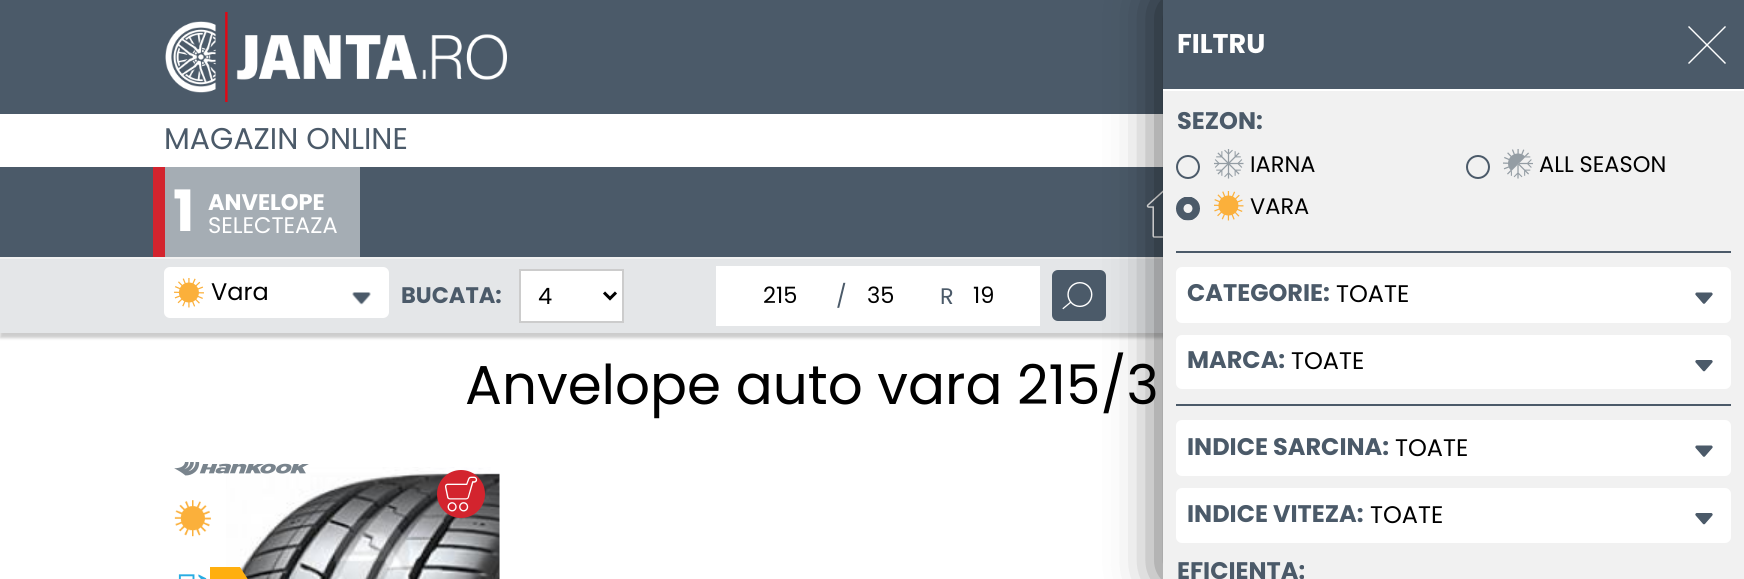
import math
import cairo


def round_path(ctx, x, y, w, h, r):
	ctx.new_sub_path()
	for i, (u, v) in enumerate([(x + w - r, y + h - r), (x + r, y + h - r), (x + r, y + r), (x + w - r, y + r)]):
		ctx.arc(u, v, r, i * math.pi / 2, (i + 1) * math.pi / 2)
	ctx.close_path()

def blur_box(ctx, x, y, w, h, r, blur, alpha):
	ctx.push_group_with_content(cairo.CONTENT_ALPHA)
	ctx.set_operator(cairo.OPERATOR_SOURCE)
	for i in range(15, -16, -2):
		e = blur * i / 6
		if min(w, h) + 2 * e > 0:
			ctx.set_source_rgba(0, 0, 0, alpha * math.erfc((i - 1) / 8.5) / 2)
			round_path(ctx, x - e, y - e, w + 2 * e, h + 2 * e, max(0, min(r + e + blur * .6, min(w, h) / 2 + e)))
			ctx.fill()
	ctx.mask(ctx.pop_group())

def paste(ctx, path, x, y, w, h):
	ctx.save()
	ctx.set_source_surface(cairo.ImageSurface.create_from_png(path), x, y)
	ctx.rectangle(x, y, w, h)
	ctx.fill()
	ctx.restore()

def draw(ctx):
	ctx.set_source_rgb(1, 1, 1)
	ctx.paint()
	ctx.set_source_rgb(0.294, 0.353, 0.412)
	ctx.rectangle(0, 0, 1163, 114)
	ctx.fill()
	paste(ctx, 'media/1.png', 165, 12, 342, 90)
	ctx.set_source_rgb(0, 0, 0)
	blur_box(ctx, 0, 263, 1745, 75, 0, 1.5, 0.2)
	ctx.set_source_rgb(0.945, 0.945, 0.945)
	ctx.rectangle(0, 257, 1163, 2)
	ctx.fill()
	ctx.set_source_rgb(0.294, 0.353, 0.412)
	ctx.rectangle(0, 167, 1163, 90)
	ctx.fill()
	paste(ctx, 'media/8.png', 1146, 190, 17, 48)
	ctx.set_source_rgb(0.894, 0.902, 0.91)
	ctx.rectangle(0, 259, 1163, 74)
	ctx.fill()
	ctx.set_source_rgb(0.294, 0.353, 0.412)
	round_path(ctx, 1053, 271, 52, 49, 5)
	ctx.fill_preserve()
	ctx.stroke()
	paste(ctx, 'media/11.png', 1062, 282, 31, 28)
	ctx.set_source_rgb(0, 0, 0)
	blur_box(ctx, 1167, 3, 576, 573, 0, 26, 0.8)
	ctx.set_source_rgb(0.945, 0.945, 0.945)
	ctx.rectangle(1163, 91, 581, 488)
	ctx.fill()
	ctx.set_source_rgb(0.294, 0.353, 0.412)
	ctx.rectangle(1163, 0, 581, 89)
	ctx.fill()
	ctx.set_source_rgb(1, 1, 1)
	ctx.rectangle(1163, 89, 581, 2)
	ctx.fill()
	ctx.select_font_face('Poppins', cairo.FONT_SLANT_NORMAL, cairo.FONT_WEIGHT_BOLD)
	ctx.set_font_size(27)
	ctx.move_to(1177, 53)
	ctx.show_text('FILTRU')
	ctx.new_path()
	ctx.move_to(1688, 27)
	ctx.line_to(1689, 26)
	ctx.line_to(1726, 63)
	ctx.line_to(1725, 64)
	ctx.close_path()
	ctx.fill()
	ctx.new_path()
	ctx.move_to(1689, 64)
	ctx.line_to(1688, 63)
	ctx.line_to(1725, 26)
	ctx.line_to(1726, 27)
	ctx.close_path()
	ctx.fill()
	ctx.set_font_size(24)
	ctx.set_source_rgb(0.294, 0.353, 0.412)
	ctx.move_to(1177, 129)
	ctx.show_text('SEZON:')
	ctx.new_path()
	ctx.arc(1188, 167, 11, 0, 2 * math.pi)
	ctx.stroke()
	paste(ctx, 'media/2.png', 1214, 149, 30, 30)
	ctx.select_font_face('Poppins')
	ctx.set_font_size(22.5)
	ctx.set_source_rgb(0, 0, 0)
	ctx.move_to(1250, 172)
	ctx.show_text('IARNA')
	ctx.new_path()
	ctx.arc(1478, 167, 11, 0, 2 * math.pi)
	ctx.set_source_rgb(0.294, 0.353, 0.412)
	ctx.stroke()
	paste(ctx, 'media/3.png', 1503, 149, 30, 30)
	ctx.set_source_rgb(0, 0, 0)
	ctx.move_to(1539, 172)
	ctx.show_text('ALL SEASON')
	paste(ctx, 'media/4.png', 1176, 197, 24, 24)
	paste(ctx, 'media/5.png', 1214, 191, 30, 30)
	ctx.move_to(1250, 214)
	ctx.show_text('VARA')
	ctx.set_source_rgb(0.294, 0.353, 0.412)
	ctx.rectangle(1176, 251, 555, 2)
	ctx.fill()
	ctx.set_source_rgb(1, 1, 1)
	round_path(ctx, 1176, 267, 555, 56, 6)
	ctx.fill()
	ctx.select_font_face('Poppins', cairo.FONT_SLANT_NORMAL, cairo.FONT_WEIGHT_BOLD)
	ctx.set_font_size(24)
	ctx.set_source_rgb(0.294, 0.353, 0.412)
	ctx.move_to(1187, 301)
	ctx.show_text('CATEGORIE:')
	ctx.select_font_face('Poppins')
	ctx.set_source_rgb(0, 0, 0)
	ctx.move_to(1336, 302)
	ctx.show_text('TOATE')
	paste(ctx, 'media/6.png', 1695, 292, 18, 12)
	ctx.set_source_rgb(1, 1, 1)
	round_path(ctx, 1176, 335, 555, 54, 6)
	ctx.fill()
	ctx.select_font_face('Poppins', cairo.FONT_SLANT_NORMAL, cairo.FONT_WEIGHT_BOLD)
	ctx.set_source_rgb(0.294, 0.353, 0.412)
	ctx.move_to(1187, 368)
	ctx.show_text('MARCA:')
	ctx.select_font_face('Poppins')
	ctx.set_source_rgb(0, 0, 0)
	ctx.move_to(1291, 369)
	ctx.show_text('TOATE')
	paste(ctx, 'media/7.png', 1695, 360, 18, 12)
	ctx.set_source_rgb(0.294, 0.353, 0.412)
	ctx.rectangle(1176, 404, 555, 2)
	ctx.fill()
	ctx.set_source_rgb(1, 1, 1)
	round_path(ctx, 1176, 420, 555, 56, 6)
	ctx.fill()
	ctx.select_font_face('Poppins', cairo.FONT_SLANT_NORMAL, cairo.FONT_WEIGHT_BOLD)
	ctx.set_source_rgb(0.294, 0.353, 0.412)
	ctx.move_to(1187, 455)
	ctx.show_text('INDICE SARCINA:')
	ctx.select_font_face('Poppins')
	ctx.set_source_rgb(0, 0, 0)
	ctx.move_to(1395, 456)
	ctx.show_text('TOATE')
	paste(ctx, 'media/6.png', 1695, 445, 18, 12)
	ctx.set_source_rgb(1, 1, 1)
	round_path(ctx, 1176, 488, 555, 55, 6)
	ctx.fill()
	ctx.select_font_face('Poppins', cairo.FONT_SLANT_NORMAL, cairo.FONT_WEIGHT_BOLD)
	ctx.set_source_rgb(0.294, 0.353, 0.412)
	ctx.move_to(1187, 522)
	ctx.show_text('INDICE VITEZA:')
	ctx.select_font_face('Poppins')
	ctx.set_source_rgb(0, 0, 0)
	ctx.move_to(1370, 523)
	ctx.show_text('TOATE')
	paste(ctx, 'media/7.png', 1695, 513, 18, 12)
	ctx.select_font_face('Poppins', cairo.FONT_SLANT_NORMAL, cairo.FONT_WEIGHT_BOLD)
	ctx.set_source_rgb(0.294, 0.353, 0.412)
	ctx.move_to(1177, 579)
	ctx.show_text('EFICIENTA:')
	ctx.select_font_face('Poppins')
	ctx.set_font_size(30)
	ctx.move_to(164, 149)
	ctx.show_text('MAGAZIN ONLINE')
	ctx.set_source_rgb(0.827, 0.141, 0.18)
	ctx.rectangle(153, 167, 12, 90)
	ctx.fill()
	ctx.set_source_rgb(0.647, 0.678, 0.706)
	ctx.rectangle(165, 167, 195, 90)
	ctx.fill()
	ctx.select_font_face('Poppins', cairo.FONT_SLANT_NORMAL, cairo.FONT_WEIGHT_BOLD)
	ctx.set_font_size(57)
	ctx.set_source_rgb(1, 1, 1)
	ctx.move_to(173, 231)
	ctx.show_text('1')
	ctx.set_font_size(22.5)
	ctx.move_to(208, 210)
	ctx.show_text('ANVELOPE')
	ctx.select_font_face('Poppins')
	ctx.move_to(208, 233)
	ctx.show_text('SELECTEAZA')
	round_path(ctx, 164, 267, 225, 51, 6)
	ctx.fill()
	paste(ctx, 'media/9.png', 174, 278, 30, 30)
	ctx.set_font_size(24)
	ctx.set_source_rgb(0, 0, 0)
	ctx.move_to(211, 300)
	ctx.show_text('Vara')
	paste(ctx, 'media/10.png', 352, 292, 19, 13)
	ctx.select_font_face('Poppins', cairo.FONT_SLANT_NORMAL, cairo.FONT_WEIGHT_BOLD)
	ctx.set_font_size(22.5)
	ctx.set_source_rgb(0.294, 0.353, 0.412)
	ctx.move_to(401, 303)
	ctx.show_text('BUCATA:')
	ctx.set_source_rgb(1, 1, 1)
	ctx.rectangle(520, 270, 103, 52)
	ctx.fill_preserve()
	ctx.set_source_rgb(0.8, 0.8, 0.8)
	ctx.stroke()
	ctx.new_path()
	ctx.move_to(604, 292.5)
	ctx.line_to(610, 298.5)
	ctx.line_to(616, 292.5)
	ctx.set_source_rgb(0, 0, 0)
	ctx.set_line_width(3)
	ctx.stroke()
	ctx.select_font_face('Poppins')
	ctx.move_to(538, 304)
	ctx.show_text('4')
	ctx.set_source_rgb(1, 1, 1)
	ctx.rectangle(716, 266, 324, 60)
	ctx.fill()
	ctx.set_source_rgb(0, 0, 0)
	ctx.move_to(763, 303)
	ctx.show_text('215')
	ctx.set_source_rgb(0.294, 0.353, 0.412)
	ctx.move_to(836, 304)
	ctx.show_text('/')
	ctx.set_source_rgb(0, 0, 0)
	ctx.move_to(867, 303)
	ctx.show_text('35')
	ctx.set_source_rgb(0.294, 0.353, 0.412)
	ctx.move_to(940, 304)
	ctx.show_text('R')
	ctx.set_source_rgb(0, 0, 0)
	ctx.move_to(973, 303)
	ctx.show_text('19')
	ctx.set_font_size(54.75)
	ctx.move_to(465, 404)
	ctx.show_text('Anvelope auto vara 215/3')
	paste(ctx, 'media/13.png', 226, 467, 274, 112)
	paste(ctx, 'media/12.png', 174, 462, 135, 14)
	paste(ctx, 'media/14.png', 174, 500, 37, 37)
	ctx.set_source_rgb(0.827, 0.141, 0.18)
	ctx.arc(461, 494, 24, 0, 2 * math.pi)
	ctx.fill()
	paste(ctx, 'media/15.png', 445, 476, 33, 36)
	paste(ctx, 'media/16.png', 178, 574, 29, 5)
	ctx.set_source_rgb(1, 0.686, 0.059)
	ctx.rectangle(210, 567, 30, 12)
	ctx.fill()
	ctx.new_path()
	ctx.move_to(240, 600)
	ctx.line_to(240, 567)
	ctx.line_to(250.5, 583.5)
	ctx.close_path()
	ctx.fill()


surface = cairo.ImageSurface(cairo.FORMAT_RGB24, 1744, 579)
ctx = cairo.Context(surface)
options = cairo.FontOptions()
options.set_hint_metrics(cairo.HINT_METRICS_OFF)
options.set_hint_style(cairo.HINT_STYLE_NONE)
ctx.set_font_options(options)
ctx.set_miter_limit(4)
draw(ctx)
surface.write_to_png('image.png')
